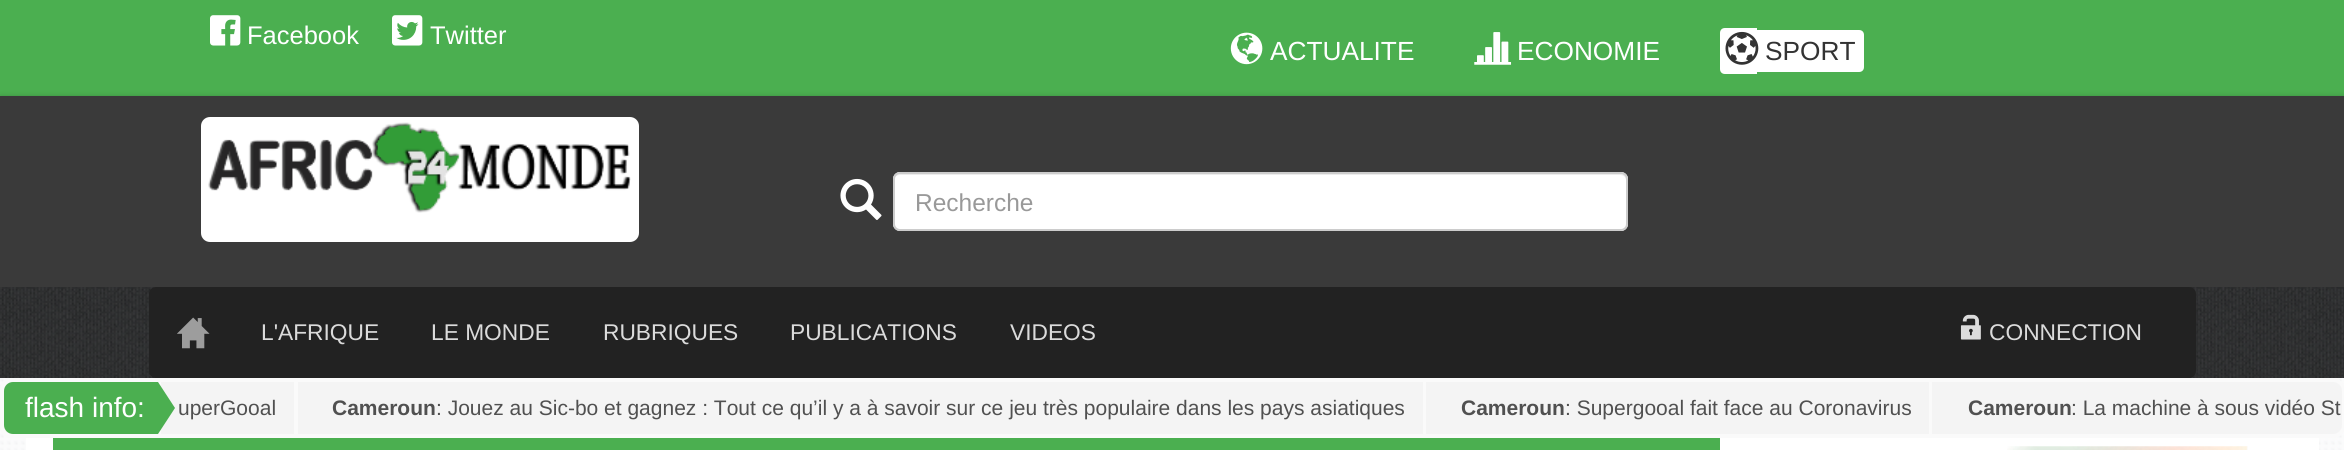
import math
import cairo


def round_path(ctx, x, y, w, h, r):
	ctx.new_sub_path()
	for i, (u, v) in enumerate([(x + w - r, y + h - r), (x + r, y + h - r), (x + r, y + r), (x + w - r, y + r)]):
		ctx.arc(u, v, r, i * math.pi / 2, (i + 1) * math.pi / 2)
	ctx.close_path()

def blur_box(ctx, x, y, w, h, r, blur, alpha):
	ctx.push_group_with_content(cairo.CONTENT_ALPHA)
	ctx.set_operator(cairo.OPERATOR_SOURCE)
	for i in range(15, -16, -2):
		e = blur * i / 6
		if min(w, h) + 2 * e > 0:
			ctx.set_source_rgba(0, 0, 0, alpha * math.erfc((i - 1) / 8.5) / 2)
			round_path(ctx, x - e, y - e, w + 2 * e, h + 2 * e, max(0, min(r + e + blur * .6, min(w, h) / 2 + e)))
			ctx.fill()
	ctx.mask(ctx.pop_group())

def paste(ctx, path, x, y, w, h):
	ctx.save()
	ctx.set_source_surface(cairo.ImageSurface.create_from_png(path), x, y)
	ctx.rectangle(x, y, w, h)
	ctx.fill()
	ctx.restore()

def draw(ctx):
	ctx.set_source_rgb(1, 1, 1)
	ctx.paint()
	paste(ctx, 'media/1.png', 0, 378, 2344, 72)
	ctx.set_source_rgb(0.294, 0.686, 0.314)
	ctx.rectangle(0, 0, 2344, 96)
	ctx.fill()
	paste(ctx, 'media/2.png', 210, 15, 31, 31)
	ctx.select_font_face('Liberation Sans')
	ctx.set_font_size(25.5)
	ctx.set_source_rgb(1, 1, 1)
	ctx.move_to(247, 44)
	ctx.show_text('Facebook')
	paste(ctx, 'media/3.png', 392, 15, 31, 31)
	ctx.move_to(430, 44)
	ctx.show_text('Twitter')
	paste(ctx, 'media/4.png', 1230, 32, 33, 33)
	ctx.set_font_size(26.25)
	ctx.move_to(1270, 60)
	ctx.show_text('ACTUALITE')
	paste(ctx, 'media/5.png', 1474, 32, 38, 33)
	ctx.move_to(1517, 60)
	ctx.show_text('ECONOMIE')
	ctx.new_path()
	ctx.move_to(1725, 28)
	ctx.line_to(1757, 28)
	ctx.line_to(1757, 74)
	ctx.line_to(1725, 74)
	ctx.curve_to(1722, 74, 1720, 72, 1720, 69)
	ctx.line_to(1720, 33)
	ctx.curve_to(1720, 30, 1722, 28, 1725, 28)
	ctx.close_path()
	ctx.fill()
	ctx.new_path()
	ctx.move_to(1757, 30)
	ctx.line_to(1859, 30)
	ctx.curve_to(1862, 30, 1864, 32, 1864, 35)
	ctx.line_to(1864, 67)
	ctx.curve_to(1864, 70, 1862, 72, 1859, 72)
	ctx.line_to(1757, 72)
	ctx.close_path()
	ctx.fill()
	paste(ctx, 'media/6.png', 1725, 31, 34, 34)
	ctx.set_source_rgb(0.2, 0.2, 0.2)
	ctx.move_to(1765, 60)
	ctx.show_text('SPORT')
	ctx.set_source_rgb(0, 0, 0)
	blur_box(ctx, 0, 102, 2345, 190, 0, 4.5, 1)
	ctx.set_source_rgb(0.227, 0.227, 0.227)
	ctx.rectangle(0, 96, 2344, 191)
	ctx.fill()
	ctx.set_source_rgb(1, 1, 1)
	round_path(ctx, 201, 117, 438, 125, 9)
	ctx.fill()
	paste(ctx, 'media/7.png', 208, 122, 423, 91)
	paste(ctx, 'media/8.png', 840, 178, 42, 42)
	round_path(ctx, 893, 172, 735, 59, 7)
	ctx.fill()
	ctx.set_source_rgb(0.925, 0.925, 0.925)
	ctx.new_path()
	ctx.move_to(900, 175)
	ctx.line_to(1620, 175)
	ctx.curve_to(1623, 175, 1626, 177, 1626, 180)
	ctx.line_to(1626, 178)
	ctx.curve_to(1626, 175, 1624, 173, 1621, 173)
	ctx.line_to(899, 173)
	ctx.curve_to(896, 173, 894, 175, 894, 178)
	ctx.line_to(894, 180)
	ctx.curve_to(894, 177, 897, 175, 900, 175)
	ctx.close_path()
	ctx.fill()
	round_path(ctx, 894, 173, 733, 57, 6)
	ctx.set_source_rgb(0.8, 0.8, 0.8)
	ctx.stroke()
	ctx.set_font_size(24.5)
	ctx.set_source_rgb(0.6, 0.6, 0.6)
	ctx.move_to(915, 211)
	ctx.show_text('Recherche')
	paste(ctx, 'media/9.png', 0, 287, 2344, 91)
	ctx.set_source_rgb(0.133, 0.133, 0.133)
	round_path(ctx, 149, 287, 2047, 91, 7)
	ctx.fill()
	paste(ctx, 'media/10.png', 177, 317, 33, 32)
	ctx.set_font_size(22.75)
	ctx.set_source_rgb(0.859, 0.859, 0.859)
	for x, y, s in [
		(261, 340, 'L\'AFRIQUE'),
		(431, 340, 'LE MONDE'),
		(603, 340, 'RUBRIQUES'),
		(790, 340, 'PUBLICATIONS'),
		(1010, 340, 'VIDEOS'),
	]:
		ctx.move_to(x, y)
		ctx.show_text(s)
	paste(ctx, 'media/11.png', 1960, 314, 21, 26)
	ctx.move_to(1989, 340)
	ctx.show_text('CONNECTION')
	ctx.set_source_rgb(0.98, 0.98, 0.98)
	round_path(ctx, 0, 378, 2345, 60, 12)
	ctx.fill()
	ctx.set_source_rgb(0.294, 0.686, 0.314)
	ctx.new_path()
	ctx.move_to(13, 382)
	ctx.line_to(158, 382)
	ctx.line_to(158, 434)
	ctx.line_to(13, 434)
	ctx.curve_to(8, 434, 4, 430, 4, 425)
	ctx.line_to(4, 391)
	ctx.curve_to(4, 386, 8, 382, 13, 382)
	ctx.close_path()
	ctx.fill()
	ctx.set_font_size(28)
	ctx.set_source_rgb(1, 1, 1)
	ctx.move_to(25, 417)
	ctx.show_text('flash info:')
	ctx.set_source_rgb(0.957, 0.957, 0.957)
	ctx.rectangle(161, 382, 133, 52)
	ctx.fill()
	ctx.set_source_rgb(0.294, 0.686, 0.314)
	ctx.new_path()
	ctx.move_to(158, 434)
	ctx.line_to(158, 382)
	ctx.line_to(175, 408)
	ctx.close_path()
	ctx.fill()
	ctx.set_font_size(21)
	ctx.set_source_rgb(0.314, 0.314, 0.314)
	ctx.move_to(178, 415)
	ctx.show_text('uperGooal')
	ctx.set_source_rgb(0.957, 0.957, 0.957)
	ctx.rectangle(298, 382, 1125, 52)
	ctx.fill()
	ctx.select_font_face('Liberation Sans', cairo.FONT_SLANT_NORMAL, cairo.FONT_WEIGHT_BOLD)
	ctx.set_source_rgb(0.314, 0.314, 0.314)
	ctx.move_to(332, 415)
	ctx.show_text('Cameroun')
	ctx.select_font_face('Liberation Sans')
	ctx.move_to(436, 415)
	ctx.show_text(': Jouez au Sic-bo et gagnez : Tout ce qu’il y a à savoir sur ce jeu très populaire dans les pays asiatiques')
	ctx.set_source_rgb(0.957, 0.957, 0.957)
	ctx.rectangle(1426, 382, 503, 52)
	ctx.fill()
	ctx.select_font_face('Liberation Sans', cairo.FONT_SLANT_NORMAL, cairo.FONT_WEIGHT_BOLD)
	ctx.set_source_rgb(0.314, 0.314, 0.314)
	ctx.move_to(1461, 415)
	ctx.show_text('Cameroun')
	ctx.select_font_face('Liberation Sans')
	ctx.move_to(1565, 415)
	ctx.show_text(': Supergooal fait face au Coronavirus')
	ctx.set_source_rgb(0.957, 0.957, 0.957)
	ctx.new_path()
	ctx.move_to(1932, 382)
	ctx.line_to(2333, 382)
	ctx.curve_to(2338, 382, 2342, 386, 2342, 391)
	ctx.line_to(2342, 425)
	ctx.curve_to(2342, 430, 2338, 434, 2333, 434)
	ctx.line_to(1932, 434)
	ctx.close_path()
	ctx.fill()
	ctx.select_font_face('Liberation Sans', cairo.FONT_SLANT_NORMAL, cairo.FONT_WEIGHT_BOLD)
	ctx.set_source_rgb(0.314, 0.314, 0.314)
	ctx.move_to(1968, 415)
	ctx.show_text('Cameroun')
	ctx.select_font_face('Liberation Sans')
	ctx.move_to(2071, 415)
	ctx.show_text(': La machine à sous vidéo St')
	ctx.set_source_rgb(1, 1, 1)
	ctx.rectangle(26, 438, 2293, 12)
	ctx.fill()
	ctx.set_source_rgb(0.294, 0.686, 0.314)
	ctx.rectangle(53, 438, 1667, 12)
	ctx.fill()
	paste(ctx, 'media/12.png', 2007, 446, 241, 4)


surface = cairo.ImageSurface(cairo.FORMAT_RGB24, 2344, 450)
ctx = cairo.Context(surface)
options = cairo.FontOptions()
options.set_hint_metrics(cairo.HINT_METRICS_OFF)
options.set_hint_style(cairo.HINT_STYLE_NONE)
ctx.set_font_options(options)
ctx.set_miter_limit(4)
draw(ctx)
surface.write_to_png('image.png')
